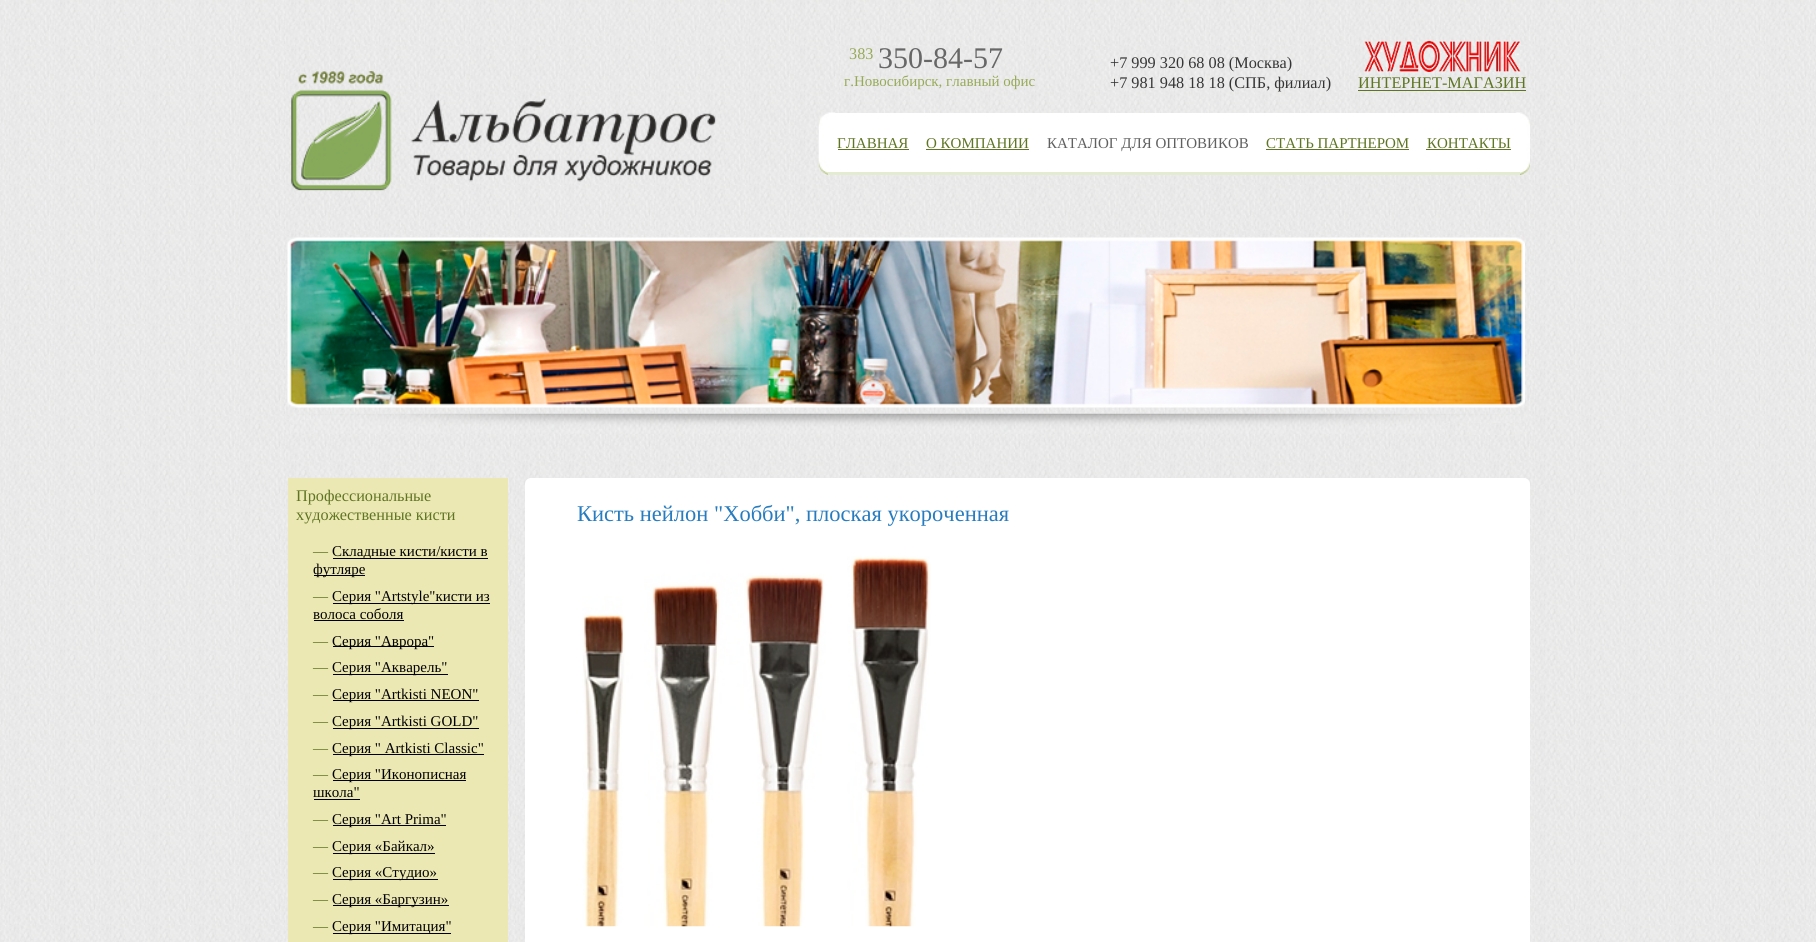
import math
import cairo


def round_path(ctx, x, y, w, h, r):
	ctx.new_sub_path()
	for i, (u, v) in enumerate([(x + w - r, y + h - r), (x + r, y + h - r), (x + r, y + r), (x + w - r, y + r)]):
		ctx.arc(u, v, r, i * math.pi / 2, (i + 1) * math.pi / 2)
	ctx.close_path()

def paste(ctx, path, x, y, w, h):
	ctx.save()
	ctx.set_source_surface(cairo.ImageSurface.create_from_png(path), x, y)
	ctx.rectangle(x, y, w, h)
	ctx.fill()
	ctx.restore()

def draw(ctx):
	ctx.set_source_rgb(1, 1, 1)
	ctx.paint()
	paste(ctx, 'media/1.png', 0, 0, 1816, 942)
	paste(ctx, 'media/2.png', 291, 71, 425, 120)
	ctx.select_font_face('Liberation Serif')
	ctx.set_font_size(16.25)
	ctx.set_source_rgb(0.592, 0.667, 0.349)
	ctx.move_to(849, 59)
	ctx.show_text('383')
	ctx.set_font_size(30)
	ctx.set_source_rgb(0.404, 0.404, 0.404)
	ctx.move_to(878, 68)
	ctx.show_text('350-84-57')
	ctx.set_font_size(15)
	ctx.set_source_rgb(0.592, 0.667, 0.349)
	ctx.move_to(844, 86)
	ctx.show_text('г.Новосибирск, главный офис')
	ctx.set_font_size(16.25)
	ctx.set_source_rgb(0.208, 0.208, 0.208)
	ctx.move_to(1110, 68)
	ctx.show_text('+7 999 320 68 08 (Москва)')
	ctx.move_to(1110, 88)
	ctx.show_text('+7 981 948 18 18 (СПБ, филиал)')
	paste(ctx, 'media/3.png', 1364, 40, 157, 34)
	ctx.set_source_rgb(0.369, 0.459, 0.137)
	ctx.move_to(1358, 88)
	ctx.show_text('ИНТЕРНЕТ-МАГАЗИН')
	ctx.rectangle(1358, 90, 168, 1)
	ctx.fill()
	paste(ctx, 'media/4.png', 818, 112, 17, 63)
	paste(ctx, 'media/5.png', 1516, 112, 14, 63)
	ctx.set_source_rgb(1, 1, 1)
	ctx.rectangle(829, 113, 691, 59)
	ctx.fill()
	ctx.set_source_rgb(0.89, 0.918, 0.816)
	ctx.rectangle(828, 172, 692, 3)
	ctx.fill()
	ctx.set_font_size(15)
	ctx.set_source_rgb(0.369, 0.459, 0.137)
	ctx.move_to(837, 148)
	ctx.show_text('ГЛАВНАЯ')
	ctx.rectangle(838, 149, 71, 1)
	ctx.fill()
	ctx.move_to(926, 148)
	ctx.show_text('О КОМПАНИИ')
	ctx.rectangle(926, 149, 103, 1)
	ctx.fill()
	ctx.set_source_rgb(0.376, 0.376, 0.376)
	ctx.move_to(1047, 148)
	ctx.show_text('КАТАЛОГ ДЛЯ ОПТОВИКОВ')
	ctx.set_source_rgb(0.369, 0.459, 0.137)
	ctx.move_to(1266, 148)
	ctx.show_text('СТАТЬ ПАРТНЕРОМ')
	ctx.rectangle(1266, 149, 143, 1)
	ctx.fill()
	ctx.move_to(1427, 148)
	ctx.show_text('КОНТАКТЫ')
	ctx.rectangle(1426, 149, 85, 1)
	ctx.fill()
	paste(ctx, 'media/6.png', 290, 413, 1238, 21)
	paste(ctx, 'media/7.png', 287, 237, 1238, 171)
	ctx.set_source_rgb(0.925, 0.91, 0.702)
	ctx.rectangle(288, 478, 220, 464)
	ctx.fill()
	ctx.set_font_size(16.25)
	ctx.set_source_rgb(0.369, 0.459, 0.137)
	ctx.move_to(296, 501)
	ctx.show_text('Профессиональные')
	ctx.move_to(296, 520)
	ctx.show_text('художественные кисти')
	ctx.set_font_size(15)
	ctx.move_to(313, 556)
	ctx.show_text('—')
	ctx.set_source_rgb(0.004, 0.004, 0.004)
	ctx.rectangle(333, 558, 155, 1)
	ctx.fill()
	ctx.move_to(332, 556)
	ctx.show_text('Складные кисти/кисти в')
	ctx.rectangle(314, 575, 51, 1)
	ctx.fill()
	ctx.move_to(313, 574)
	ctx.show_text('футляре')
	ctx.set_source_rgb(0.369, 0.459, 0.137)
	ctx.move_to(313, 601)
	ctx.show_text('—')
	ctx.set_source_rgb(0.004, 0.004, 0.004)
	ctx.rectangle(333, 603, 157, 1)
	ctx.fill()
	ctx.move_to(332, 601)
	ctx.show_text('Серия "Artstyle"кисти из')
	ctx.move_to(313, 619)
	ctx.show_text('волоса соболя')
	ctx.rectangle(314, 620, 90, 1)
	ctx.fill()
	ctx.set_source_rgb(0.369, 0.459, 0.137)
	ctx.move_to(313, 646)
	ctx.show_text('—')
	ctx.set_source_rgb(0.004, 0.004, 0.004)
	ctx.rectangle(333, 646, 101, 1)
	ctx.fill()
	ctx.move_to(332, 646)
	ctx.show_text('Серия "Аврора"')
	ctx.set_source_rgb(0.369, 0.459, 0.137)
	ctx.move_to(313, 672)
	ctx.show_text('—')
	ctx.set_source_rgb(0.004, 0.004, 0.004)
	ctx.rectangle(333, 674, 115, 1)
	ctx.fill()
	ctx.move_to(332, 672)
	ctx.show_text('Серия "Акварель"')
	ctx.set_source_rgb(0.369, 0.459, 0.137)
	ctx.move_to(313, 699)
	ctx.show_text('—')
	ctx.set_source_rgb(0.004, 0.004, 0.004)
	ctx.rectangle(333, 700, 146, 1)
	ctx.fill()
	ctx.move_to(332, 699)
	ctx.show_text('Серия "Аrtkisti NEON"')
	ctx.set_source_rgb(0.369, 0.459, 0.137)
	ctx.move_to(313, 726)
	ctx.show_text('—')
	ctx.set_source_rgb(0.004, 0.004, 0.004)
	ctx.rectangle(333, 728, 146, 1)
	ctx.fill()
	ctx.move_to(332, 726)
	ctx.show_text('Серия "Аrtkisti GOLD"')
	ctx.set_source_rgb(0.369, 0.459, 0.137)
	ctx.move_to(313, 753)
	ctx.show_text('—')
	ctx.set_source_rgb(0.004, 0.004, 0.004)
	ctx.rectangle(333, 754, 151, 1)
	ctx.fill()
	ctx.move_to(332, 753)
	ctx.show_text('Серия " Artkisti Classic"')
	ctx.set_source_rgb(0.369, 0.459, 0.137)
	ctx.move_to(313, 779)
	ctx.show_text('—')
	ctx.set_source_rgb(0.004, 0.004, 0.004)
	ctx.rectangle(333, 780, 133, 1)
	ctx.fill()
	ctx.move_to(332, 779)
	ctx.show_text('Серия "Иконописная')
	ctx.move_to(313, 797)
	ctx.show_text('школа"')
	ctx.rectangle(314, 799, 46, 1)
	ctx.fill()
	ctx.set_source_rgb(0.369, 0.459, 0.137)
	ctx.move_to(313, 824)
	ctx.show_text('—')
	ctx.set_source_rgb(0.004, 0.004, 0.004)
	ctx.rectangle(333, 825, 113, 1)
	ctx.fill()
	ctx.move_to(332, 824)
	ctx.show_text('Серия "Аrt Prima"')
	ctx.set_source_rgb(0.369, 0.459, 0.137)
	ctx.move_to(313, 851)
	ctx.show_text('—')
	ctx.set_source_rgb(0.004, 0.004, 0.004)
	ctx.rectangle(333, 853, 102, 1)
	ctx.fill()
	ctx.move_to(332, 851)
	ctx.show_text('Серия «Байкал»')
	ctx.set_source_rgb(0.369, 0.459, 0.137)
	ctx.move_to(313, 877)
	ctx.show_text('—')
	ctx.set_source_rgb(0.004, 0.004, 0.004)
	ctx.rectangle(333, 879, 105, 1)
	ctx.fill()
	ctx.move_to(332, 877)
	ctx.show_text('Серия «Студио»')
	ctx.set_source_rgb(0.369, 0.459, 0.137)
	ctx.move_to(313, 904)
	ctx.show_text('—')
	ctx.set_source_rgb(0.004, 0.004, 0.004)
	ctx.rectangle(333, 905, 116, 1)
	ctx.fill()
	ctx.move_to(332, 904)
	ctx.show_text('Серия «Баргузин»')
	ctx.set_source_rgb(0.369, 0.459, 0.137)
	ctx.move_to(313, 931)
	ctx.show_text('—')
	ctx.set_source_rgb(0.004, 0.004, 0.004)
	ctx.rectangle(333, 933, 118, 1)
	ctx.fill()
	ctx.move_to(332, 931)
	ctx.show_text('Серия "Имитация"')
	ctx.set_source_rgb(1, 1, 1)
	round_path(ctx, 525, 478, 1005, 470, 6)
	ctx.fill()
	paste(ctx, 'media/8.png', 1444, 423, 82, 12)
	ctx.set_font_size(22.5)
	ctx.set_source_rgb(0.153, 0.486, 0.749)
	ctx.move_to(577, 521)
	ctx.show_text('Кисть нейлон "Хобби", плоская укороченная')
	paste(ctx, 'media/9.png', 582, 556, 349, 371)


surface = cairo.ImageSurface(cairo.FORMAT_RGB24, 1816, 942)
ctx = cairo.Context(surface)
options = cairo.FontOptions()
options.set_hint_metrics(cairo.HINT_METRICS_OFF)
options.set_hint_style(cairo.HINT_STYLE_NONE)
ctx.set_font_options(options)
ctx.set_miter_limit(4)
draw(ctx)
surface.write_to_png('image.png')
